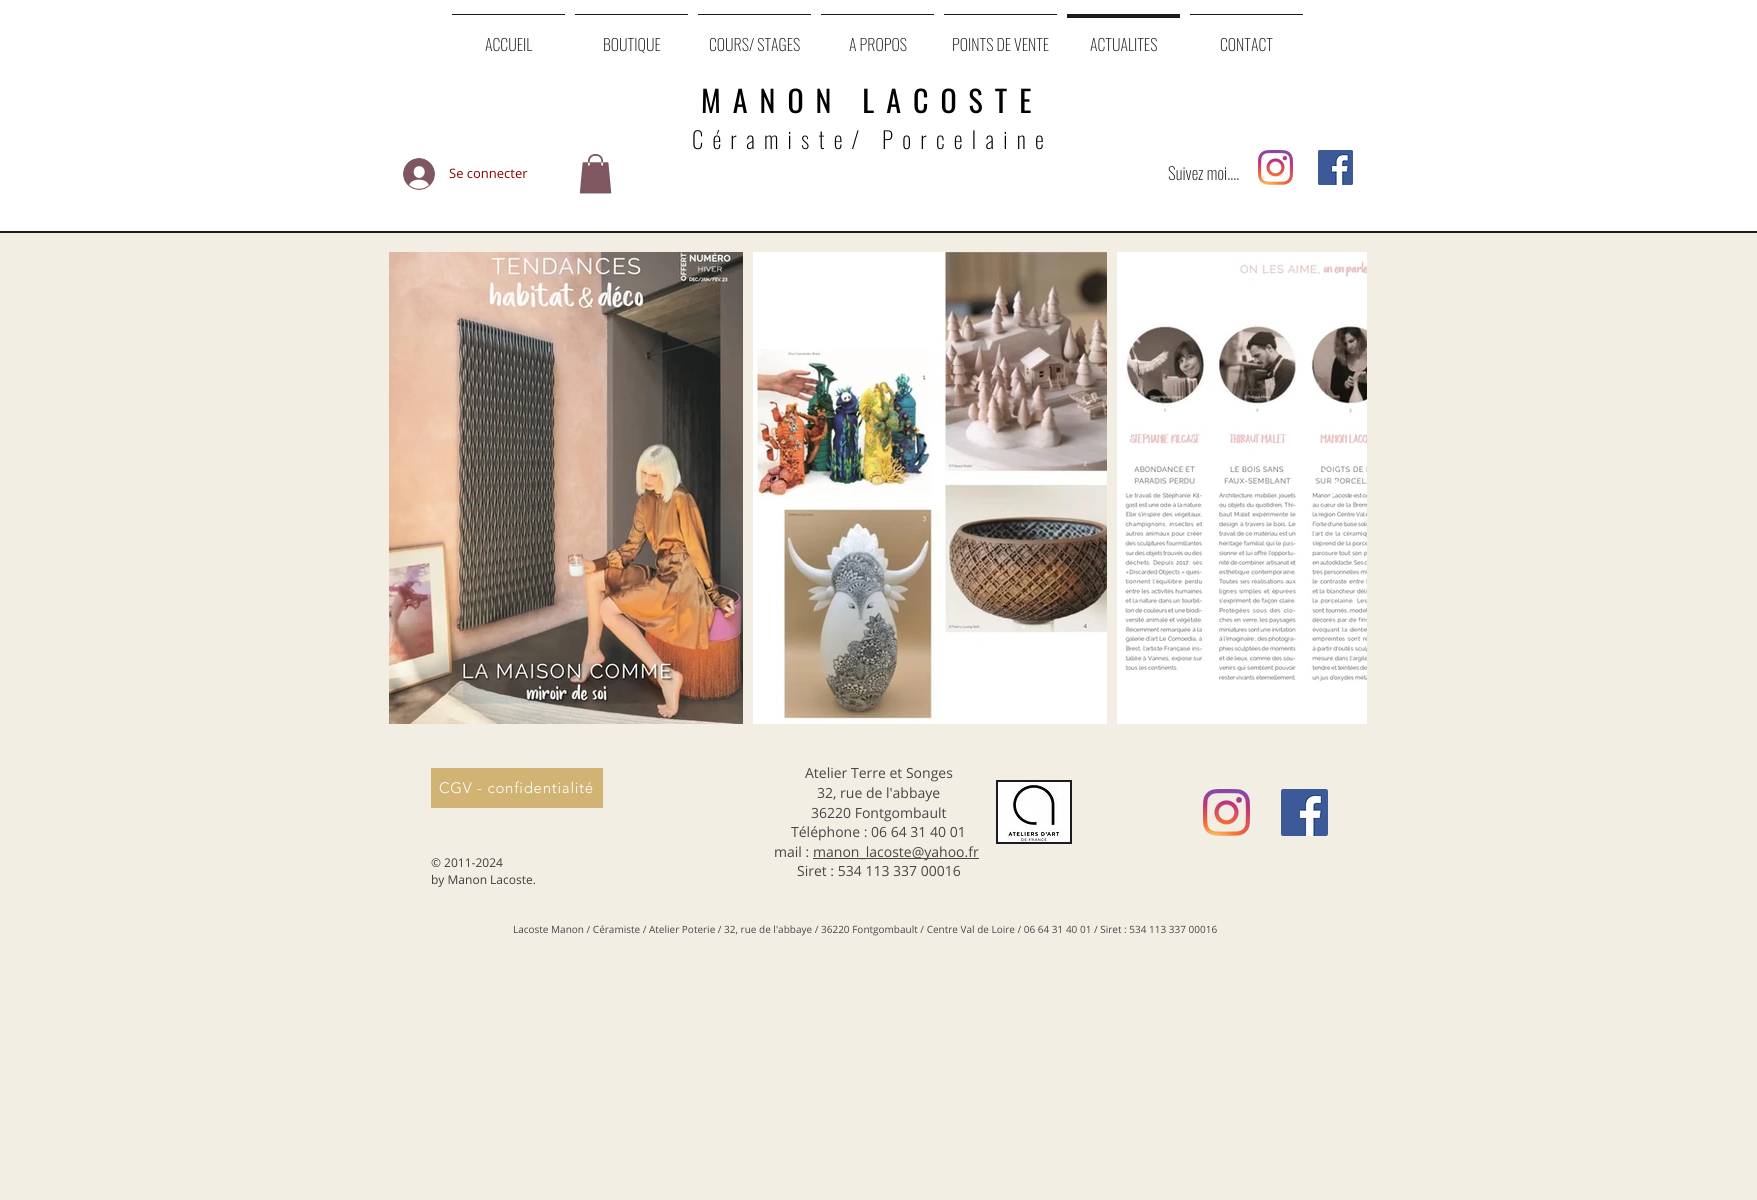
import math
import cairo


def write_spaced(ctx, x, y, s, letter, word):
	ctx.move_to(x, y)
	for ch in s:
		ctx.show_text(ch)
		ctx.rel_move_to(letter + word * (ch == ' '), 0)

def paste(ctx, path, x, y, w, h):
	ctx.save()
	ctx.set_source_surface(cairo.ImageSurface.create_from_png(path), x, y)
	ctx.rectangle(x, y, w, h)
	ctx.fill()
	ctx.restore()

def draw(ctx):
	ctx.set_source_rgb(0.949, 0.933, 0.894)
	ctx.paint()
	ctx.set_source_rgb(1, 1, 1)
	ctx.rectangle(0, 0, 1757, 231)
	ctx.fill()
	ctx.set_source_rgb(0.11, 0.11, 0.11)
	ctx.rectangle(0, 231, 1757, 2)
	ctx.rectangle(452, 14, 113, 1)
	ctx.fill()
	ctx.select_font_face('Oswald ExtraLight')
	ctx.set_font_size(16)
	ctx.move_to(485, 51)
	ctx.show_text('ACCUEIL')
	ctx.rectangle(575, 14, 113, 1)
	ctx.fill()
	ctx.move_to(603, 51)
	ctx.show_text('BOUTIQUE')
	ctx.rectangle(698, 14, 113, 1)
	ctx.fill()
	ctx.move_to(709, 51)
	ctx.show_text('COURS/ STAGES')
	ctx.rectangle(821, 14, 113, 1)
	ctx.fill()
	ctx.move_to(849, 51)
	ctx.show_text('A PROPOS')
	ctx.rectangle(944, 14, 113, 1)
	ctx.fill()
	ctx.move_to(952, 51)
	ctx.show_text('POINTS DE VENTE')
	ctx.rectangle(1067, 14, 113, 4)
	ctx.fill()
	ctx.move_to(1090, 51)
	ctx.show_text('ACTUALITES')
	ctx.rectangle(1190, 14, 113, 1)
	ctx.fill()
	ctx.move_to(1220, 51)
	ctx.show_text('CONTACT')
	ctx.select_font_face('Oswald')
	ctx.set_font_size(30)
	ctx.set_source_rgb(0, 0, 0)
	write_spaced(ctx, 701, 113, 'MANON LACOSTE', 12, 0)
	ctx.select_font_face('Oswald ExtraLight')
	ctx.set_font_size(23)
	write_spaced(ctx, 692, 149, 'Céramiste/ Porcelaine', 9.2, 0)
	paste(ctx, 'media/1.png', 403, 158, 32, 32)
	ctx.select_font_face('Open Sans')
	ctx.set_font_size(13)
	ctx.set_source_rgb(0.545, 0, 0)
	ctx.move_to(449, 178)
	ctx.show_text('Se connecter')
	paste(ctx, 'media/2.png', 579, 154, 33, 40)
	ctx.select_font_face('Oswald ExtraLight')
	ctx.set_font_size(17)
	ctx.set_source_rgb(0.11, 0.11, 0.11)
	ctx.move_to(1168, 180)
	ctx.show_text('Suivez moi....')
	paste(ctx, 'media/3.png', 1258, 150, 35, 35)
	paste(ctx, 'media/4.png', 1318, 150, 35, 35)
	paste(ctx, 'media/5.png', 389, 252, 354, 472)
	paste(ctx, 'media/6.png', 753, 252, 354, 472)
	paste(ctx, 'media/7.png', 1117, 252, 250, 472)
	ctx.set_source_rgba(1, 1, 1, 0.9)
	ctx.new_path()
	ctx.move_to(1323, 470.5)
	ctx.line_to(1324.5, 469)
	ctx.line_to(1342.5, 487)
	ctx.line_to(1324.5, 505)
	ctx.line_to(1323, 503.5)
	ctx.line_to(1339.5, 487)
	ctx.close_path()
	ctx.fill()
	ctx.set_source_rgb(0.82, 0.706, 0.451)
	ctx.rectangle(431, 768, 172, 40)
	ctx.fill()
	ctx.select_font_face('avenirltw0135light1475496 Light')
	ctx.set_font_size(15)
	ctx.set_source_rgb(1, 1, 1)
	write_spaced(ctx, 439, 793, 'CGV - confidentialité', 0.75, 0)
	ctx.select_font_face('Open Sans')
	ctx.set_font_size(14)
	ctx.set_source_rgb(0.278, 0.278, 0.278)
	for x, y, s in [
		(805, 778, 'Atelier Terre et Songes'),
		(817, 798, '32, rue de l\'abbaye'),
		(811, 818, '36220 Fontgombault'),
		(791, 837, 'Téléphone : 06 64 31 40 01'),
		(774, 857, 'mail :'),
	]:
		ctx.move_to(x, y)
		ctx.show_text(s)
	ctx.rectangle(813, 858, 166, 1)
	ctx.fill()
	ctx.move_to(813, 857)
	ctx.show_text('manon_lacoste@yahoo.fr')
	ctx.move_to(797, 876)
	ctx.show_text('Siret : 534 113 337 00016')
	ctx.set_source_rgb(0.11, 0.11, 0.11)
	ctx.rectangle(996, 780, 76, 64)
	ctx.fill()
	paste(ctx, 'media/8.png', 998, 782, 72, 60)
	paste(ctx, 'media/9.png', 1203, 789, 47, 47)
	paste(ctx, 'media/10.png', 1281, 789, 47, 47)
	ctx.set_font_size(12)
	ctx.set_source_rgb(0.243, 0.243, 0.243)
	ctx.move_to(431, 867)
	ctx.show_text('© 2011-2024')
	ctx.move_to(431, 884)
	ctx.show_text('by Manon Lacoste.')
	ctx.set_font_size(10)
	ctx.set_source_rgb(0.278, 0.278, 0.278)
	ctx.move_to(513, 933)
	ctx.show_text('Lacoste Manon / Céramiste / Atelier Poterie / 32, rue de l\'abbaye / 36220 Fontgombault / Centre Val de Loire / 06 64 31 40 01 / Siret : 534 113 337 00016')


surface = cairo.ImageSurface(cairo.FORMAT_RGB24, 1757, 1200)
ctx = cairo.Context(surface)
options = cairo.FontOptions()
options.set_hint_metrics(cairo.HINT_METRICS_OFF)
options.set_hint_style(cairo.HINT_STYLE_NONE)
ctx.set_font_options(options)
ctx.set_miter_limit(4)
draw(ctx)
surface.write_to_png('image.png')
